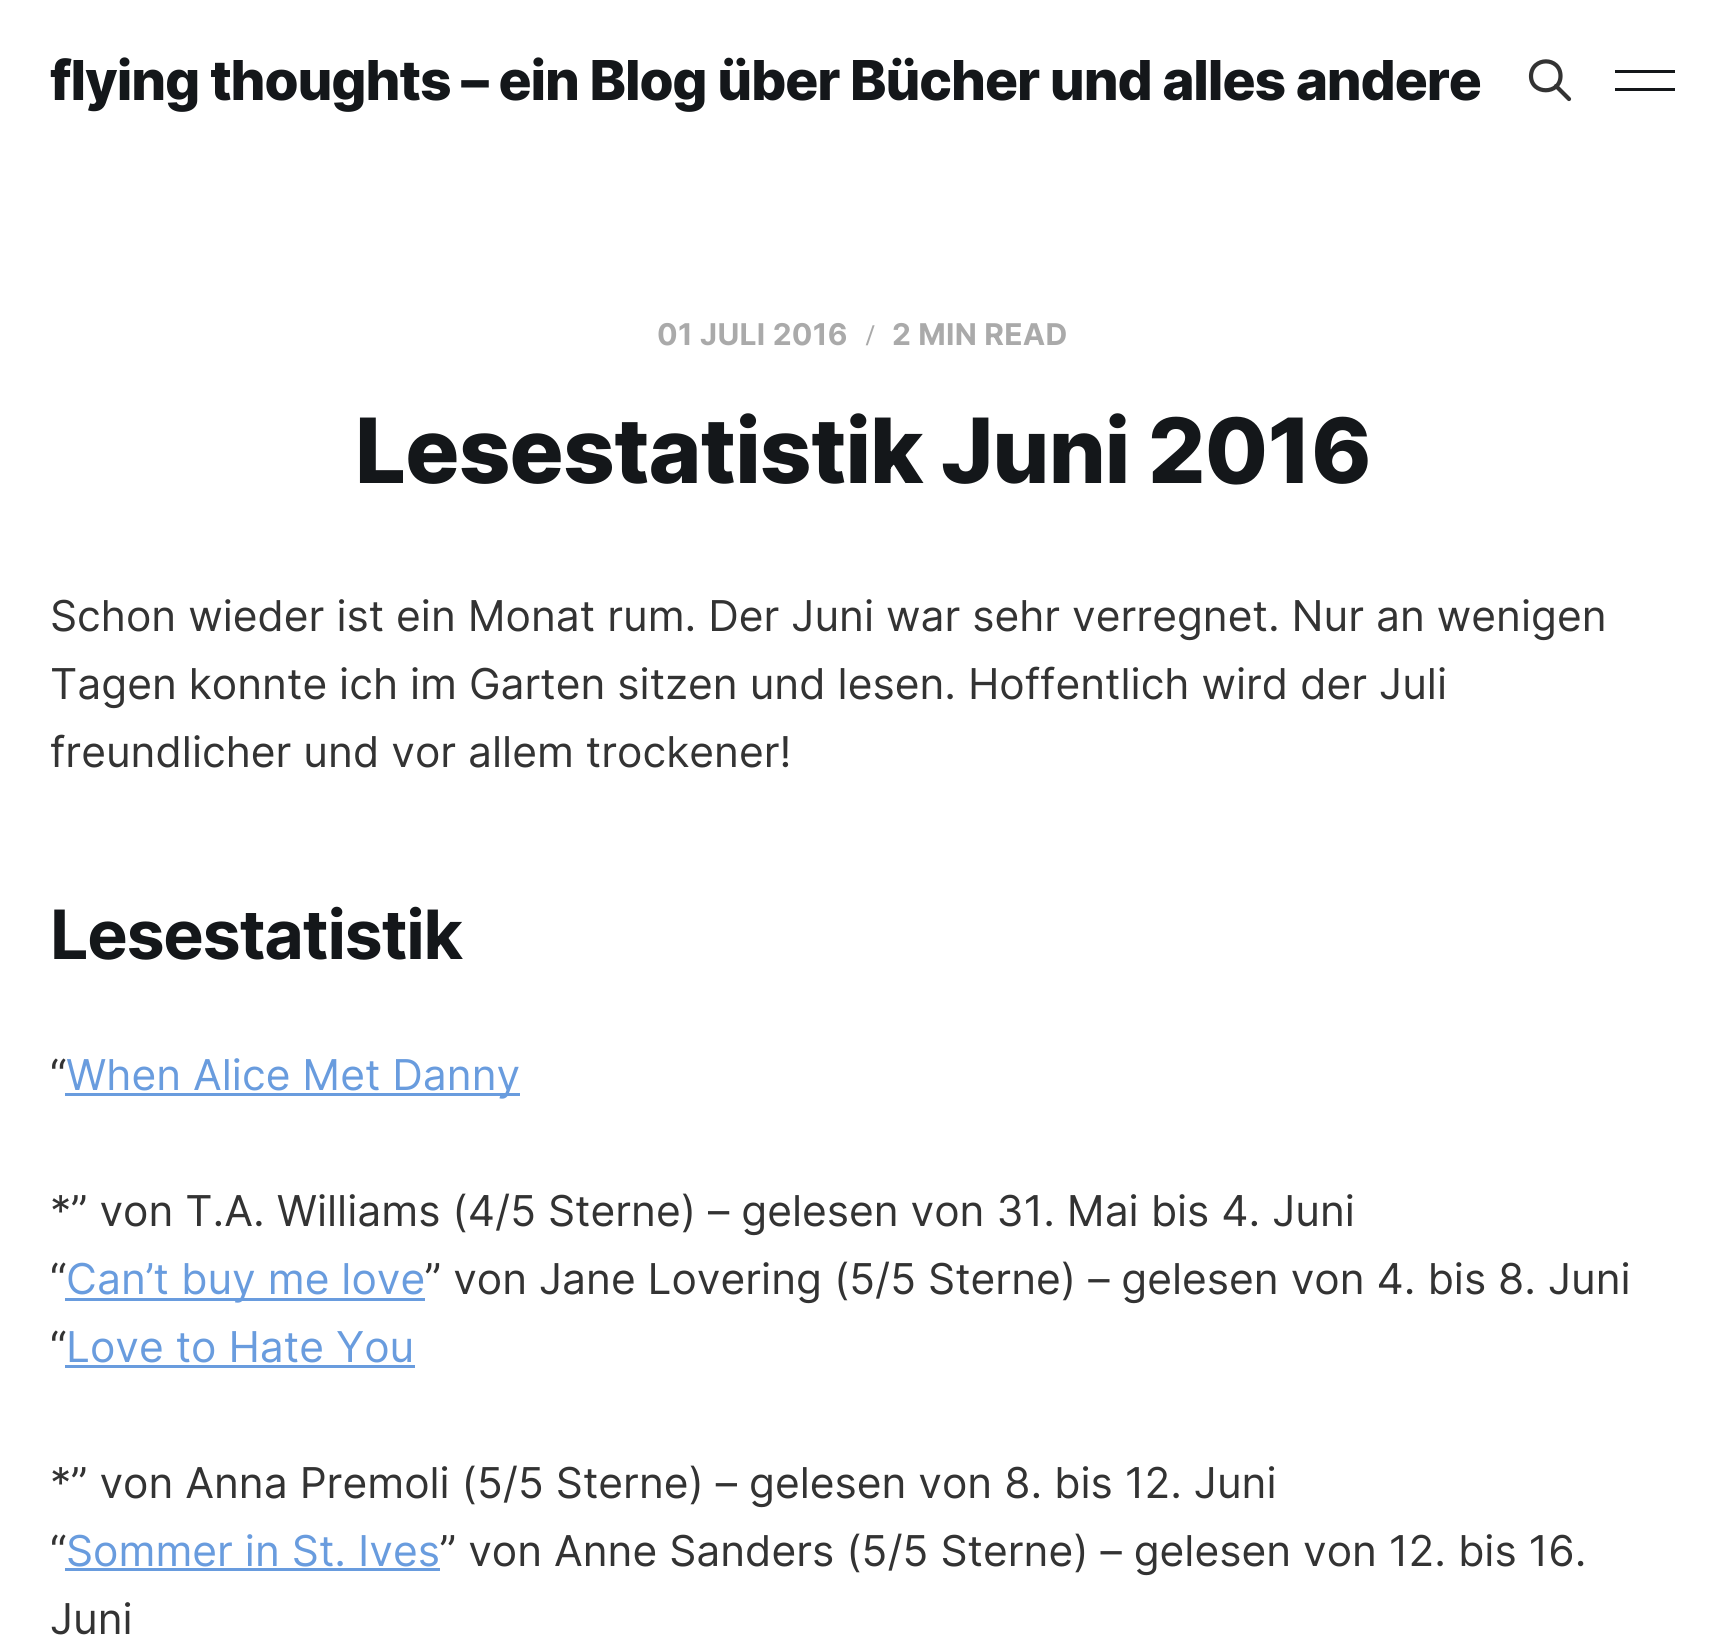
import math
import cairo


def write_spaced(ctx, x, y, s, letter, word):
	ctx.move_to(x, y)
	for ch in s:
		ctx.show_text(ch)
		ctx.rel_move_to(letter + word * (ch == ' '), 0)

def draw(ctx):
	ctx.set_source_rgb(1, 1, 1)
	ctx.paint()
	ctx.select_font_face('Inter ExtraBold')
	ctx.set_font_size(55)
	ctx.set_source_rgb(0.082, 0.09, 0.102)
	write_spaced(ctx, 50, 100, 'flying thoughts – ein Blog über Bücher und alles andere', -1.1, 0)
	ctx.new_path()
	ctx.move_to(1569, 99)
	ctx.line_to(1556, 86)
	ctx.move_to(1560.5, 76)
	ctx.curve_to(1560.5, 95, 1531, 95, 1531, 76)
	ctx.curve_to(1531.5, 56.5, 1560.5, 56.5, 1560.5, 76)
	ctx.close_path()
	ctx.set_source_rgb(0.2, 0.2, 0.2)
	ctx.set_line_width(4.2)
	ctx.set_line_cap(cairo.LINE_CAP_ROUND)
	ctx.set_line_join(cairo.LINE_JOIN_ROUND)
	ctx.stroke()
	ctx.set_source_rgb(0.082, 0.09, 0.102)
	ctx.rectangle(1615, 70, 60, 3)
	ctx.fill()
	ctx.rectangle(1615, 88, 60, 3)
	ctx.fill()
	ctx.select_font_face('Inter', cairo.FONT_SLANT_NORMAL, cairo.FONT_WEIGHT_BOLD)
	ctx.set_font_size(30)
	ctx.set_source_rgb(0.667, 0.667, 0.667)
	write_spaced(ctx, 657, 345, '01 JULI 2016', 0.25, 0)
	ctx.select_font_face('Liberation Serif', cairo.FONT_SLANT_NORMAL, cairo.FONT_WEIGHT_BOLD)
	write_spaced(ctx, 866, 345, '/', 0.25, 0)
	ctx.select_font_face('Inter', cairo.FONT_SLANT_NORMAL, cairo.FONT_WEIGHT_BOLD)
	write_spaced(ctx, 892, 345, '2 MIN READ', 0.25, 0)
	ctx.select_font_face('Inter ExtraBold')
	ctx.set_font_size(90)
	ctx.set_source_rgb(0.082, 0.09, 0.102)
	write_spaced(ctx, 355, 483, 'Lesestatistik Juni 2016', -0.9, 0)
	ctx.select_font_face('Inter')
	ctx.set_font_size(42.5)
	ctx.set_source_rgb(0.2, 0.2, 0.2)
	for x, y, s in [
		(50, 631, 'Schon wieder ist ein Monat rum. Der Juni war sehr verregnet. Nur an wenigen'),
		(50, 699, 'Tagen konnte ich im Garten sitzen und lesen. Hoffentlich wird der Juli'),
		(50, 767, 'freundlicher und vor allem trockener!'),
	]:
		ctx.move_to(x, y)
		ctx.show_text(s)
	ctx.select_font_face('Inter', cairo.FONT_SLANT_NORMAL, cairo.FONT_WEIGHT_BOLD)
	ctx.set_font_size(68)
	ctx.set_source_rgb(0.082, 0.09, 0.102)
	write_spaced(ctx, 50, 959, 'Lesestatistik', -1.4, 0)
	ctx.select_font_face('Inter')
	ctx.set_font_size(42.5)
	ctx.set_source_rgb(0.2, 0.2, 0.2)
	ctx.move_to(50, 1090)
	ctx.show_text('“')
	ctx.set_source_rgb(0.412, 0.612, 0.871)
	ctx.rectangle(65, 1093, 455, 3)
	ctx.fill()
	ctx.move_to(66, 1090)
	ctx.show_text('When Alice Met Danny')
	ctx.set_source_rgb(0.2, 0.2, 0.2)
	ctx.move_to(50, 1226)
	ctx.show_text('*” von T.A. Williams (4/5 Sterne) – gelesen von 31. Mai bis 4. Juni')
	ctx.move_to(50, 1294)
	ctx.show_text('“')
	ctx.set_source_rgb(0.412, 0.612, 0.871)
	ctx.rectangle(65, 1298, 360, 3)
	ctx.fill()
	ctx.move_to(66, 1294)
	ctx.show_text('Can’t buy me love')
	ctx.set_source_rgb(0.2, 0.2, 0.2)
	ctx.move_to(425, 1294)
	ctx.show_text('” von Jane Lovering (5/5 Sterne) – gelesen von 4. bis 8. Juni')
	ctx.move_to(50, 1362)
	ctx.show_text('“')
	ctx.set_source_rgb(0.412, 0.612, 0.871)
	ctx.move_to(66, 1362)
	ctx.show_text('Love to Hate You')
	ctx.rectangle(65, 1365, 350, 3)
	ctx.fill()
	ctx.set_source_rgb(0.2, 0.2, 0.2)
	ctx.move_to(50, 1498)
	ctx.show_text('*” von Anna Premoli (5/5 Sterne) – gelesen von 8. bis 12. Juni')
	ctx.move_to(50, 1566)
	ctx.show_text('“')
	ctx.set_source_rgb(0.412, 0.612, 0.871)
	ctx.move_to(66, 1566)
	ctx.show_text('Sommer in St. Ives')
	ctx.rectangle(65, 1568, 375, 3)
	ctx.fill()
	ctx.set_source_rgb(0.2, 0.2, 0.2)
	ctx.move_to(440, 1566)
	ctx.show_text('” von Anne Sanders (5/5 Sterne) – gelesen von 12. bis 16.')
	ctx.move_to(50, 1634)
	ctx.show_text('Juni')


surface = cairo.ImageSurface(cairo.FORMAT_RGB24, 1725, 1635)
ctx = cairo.Context(surface)
options = cairo.FontOptions()
options.set_hint_metrics(cairo.HINT_METRICS_OFF)
options.set_hint_style(cairo.HINT_STYLE_NONE)
ctx.set_font_options(options)
ctx.set_miter_limit(4)
draw(ctx)
surface.write_to_png('image.png')
